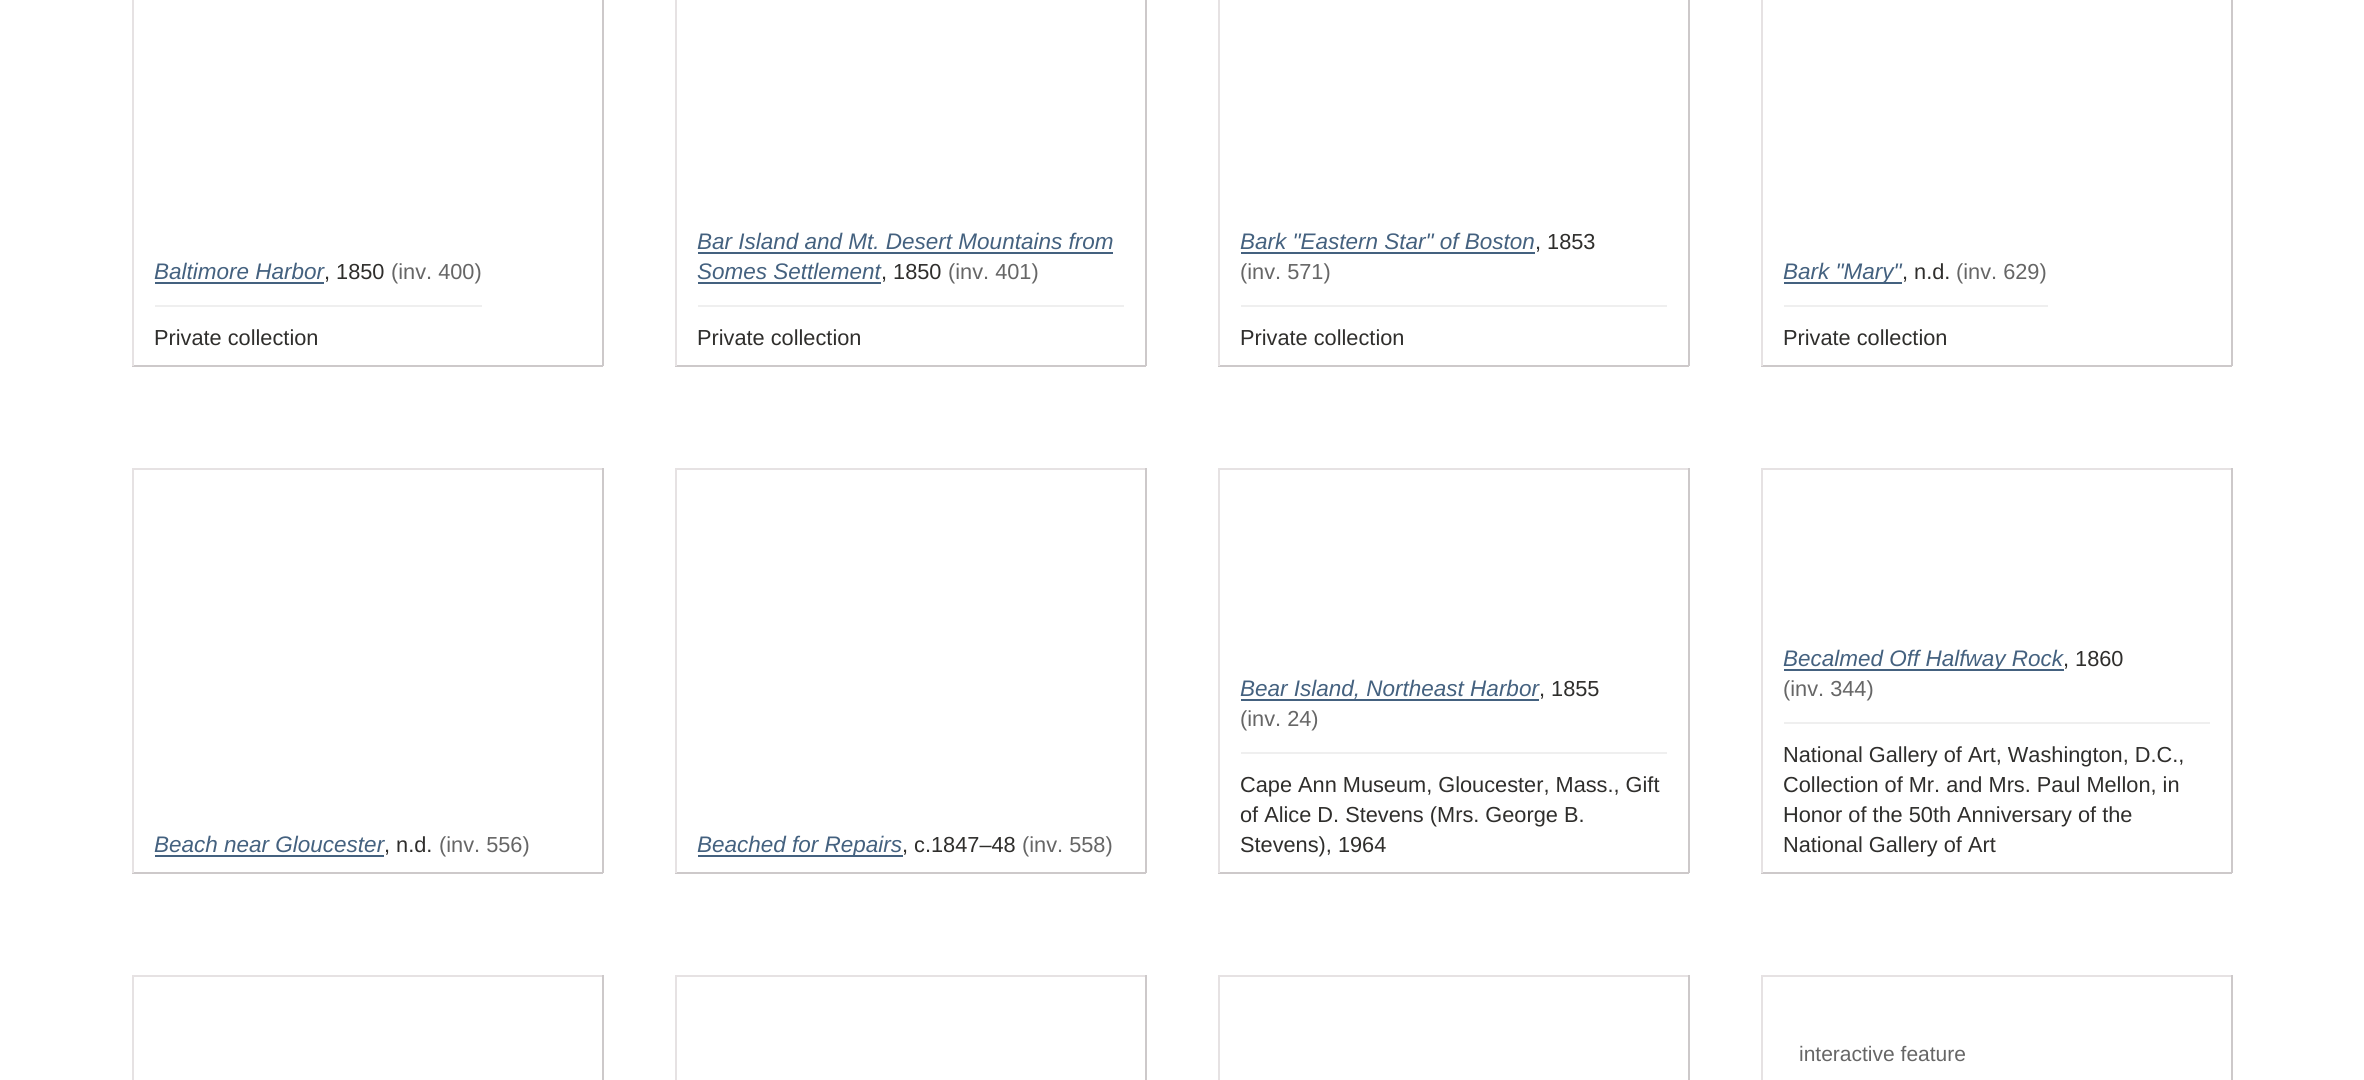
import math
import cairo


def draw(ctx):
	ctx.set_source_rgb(1, 1, 1)
	ctx.paint()
	ctx.set_source_rgb(0.804, 0.788, 0.792)
	ctx.rectangle(602, 0, 2, 366)
	ctx.rectangle(132, 365, 471, 2)
	ctx.fill()
	ctx.set_source_rgb(0.902, 0.886, 0.89)
	ctx.rectangle(132, 0, 2, 366)
	ctx.fill()
	ctx.select_font_face('Liberation Sans', cairo.FONT_SLANT_ITALIC)
	ctx.set_font_size(22.5)
	ctx.set_source_rgb(0.267, 0.38, 0.498)
	ctx.move_to(154, 279)
	ctx.show_text('Baltimore Harbor')
	ctx.rectangle(155, 282, 169, 2)
	ctx.fill()
	ctx.select_font_face('Liberation Sans')
	ctx.set_font_size(21.75)
	ctx.set_source_rgb(0.184, 0.18, 0.173)
	ctx.move_to(324, 279)
	ctx.show_text(', 1850')
	ctx.set_source_rgb(0.4, 0.4, 0.4)
	ctx.move_to(391, 279)
	ctx.show_text('(inv. 400)')
	ctx.set_source_rgb(0.937, 0.937, 0.937)
	ctx.rectangle(155, 305, 327, 2)
	ctx.fill()
	ctx.set_source_rgb(0.184, 0.18, 0.173)
	ctx.move_to(154, 345)
	ctx.show_text('Private collection')
	ctx.set_source_rgb(0.804, 0.788, 0.792)
	ctx.rectangle(1145, 0, 2, 366)
	ctx.rectangle(675, 365, 471, 2)
	ctx.fill()
	ctx.set_source_rgb(0.902, 0.886, 0.89)
	ctx.rectangle(675, 0, 2, 366)
	ctx.fill()
	ctx.select_font_face('Liberation Sans', cairo.FONT_SLANT_ITALIC)
	ctx.set_font_size(22.5)
	ctx.set_source_rgb(0.267, 0.38, 0.498)
	ctx.move_to(697, 249)
	ctx.show_text('Bar Island and Mt. Desert Mountains from')
	ctx.rectangle(698, 252, 415, 2)
	ctx.fill()
	ctx.move_to(697, 279)
	ctx.show_text('Somes Settlement')
	ctx.rectangle(698, 282, 183, 2)
	ctx.fill()
	ctx.select_font_face('Liberation Sans')
	ctx.set_font_size(21.75)
	ctx.set_source_rgb(0.184, 0.18, 0.173)
	ctx.move_to(881, 279)
	ctx.show_text(', 1850')
	ctx.set_source_rgb(0.4, 0.4, 0.4)
	ctx.move_to(948, 279)
	ctx.show_text('(inv. 401)')
	ctx.set_source_rgb(0.937, 0.937, 0.937)
	ctx.rectangle(698, 305, 426, 2)
	ctx.fill()
	ctx.set_source_rgb(0.184, 0.18, 0.173)
	ctx.move_to(697, 345)
	ctx.show_text('Private collection')
	ctx.set_source_rgb(0.804, 0.788, 0.792)
	ctx.rectangle(1688, 0, 2, 366)
	ctx.rectangle(1218, 365, 471, 2)
	ctx.fill()
	ctx.set_source_rgb(0.902, 0.886, 0.89)
	ctx.rectangle(1218, 0, 2, 366)
	ctx.fill()
	ctx.select_font_face('Liberation Sans', cairo.FONT_SLANT_ITALIC)
	ctx.set_font_size(22.5)
	ctx.set_source_rgb(0.267, 0.38, 0.498)
	ctx.move_to(1240, 249)
	ctx.show_text('Bark "Eastern Star" of Boston')
	ctx.rectangle(1241, 252, 294, 2)
	ctx.fill()
	ctx.select_font_face('Liberation Sans')
	ctx.set_font_size(21.75)
	ctx.set_source_rgb(0.184, 0.18, 0.173)
	ctx.move_to(1535, 249)
	ctx.show_text(', 1853')
	ctx.set_source_rgb(0.4, 0.4, 0.4)
	ctx.move_to(1240, 279)
	ctx.show_text('(inv. 571)')
	ctx.set_source_rgb(0.937, 0.937, 0.937)
	ctx.rectangle(1241, 305, 426, 2)
	ctx.fill()
	ctx.set_source_rgb(0.184, 0.18, 0.173)
	ctx.move_to(1240, 345)
	ctx.show_text('Private collection')
	ctx.set_source_rgb(0.804, 0.788, 0.792)
	ctx.rectangle(2231, 0, 2, 366)
	ctx.rectangle(1761, 365, 471, 2)
	ctx.fill()
	ctx.set_source_rgb(0.902, 0.886, 0.89)
	ctx.rectangle(1761, 0, 2, 366)
	ctx.fill()
	ctx.set_source_rgb(0.267, 0.38, 0.498)
	ctx.rectangle(1784, 282, 118, 2)
	ctx.fill()
	ctx.select_font_face('Liberation Sans', cairo.FONT_SLANT_ITALIC)
	ctx.set_font_size(22.5)
	ctx.move_to(1783, 279)
	ctx.show_text('Bark "Mary"')
	ctx.select_font_face('Liberation Sans')
	ctx.set_font_size(21.75)
	ctx.set_source_rgb(0.184, 0.18, 0.173)
	ctx.move_to(1902, 279)
	ctx.show_text(', n.d.')
	ctx.set_source_rgb(0.4, 0.4, 0.4)
	ctx.move_to(1956, 279)
	ctx.show_text('(inv. 629)')
	ctx.set_source_rgb(0.937, 0.937, 0.937)
	ctx.rectangle(1784, 305, 264, 2)
	ctx.fill()
	ctx.set_source_rgb(0.184, 0.18, 0.173)
	ctx.move_to(1783, 345)
	ctx.show_text('Private collection')
	ctx.set_source_rgb(0.902, 0.886, 0.89)
	ctx.rectangle(132, 468, 471, 2)
	ctx.fill()
	ctx.set_source_rgb(0.804, 0.788, 0.792)
	ctx.rectangle(602, 468, 2, 405)
	ctx.rectangle(132, 872, 471, 2)
	ctx.fill()
	ctx.set_source_rgb(0.902, 0.886, 0.89)
	ctx.rectangle(132, 468, 2, 405)
	ctx.fill()
	ctx.select_font_face('Liberation Sans', cairo.FONT_SLANT_ITALIC)
	ctx.set_font_size(22.5)
	ctx.set_source_rgb(0.267, 0.38, 0.498)
	ctx.move_to(154, 852)
	ctx.show_text('Beach near Gloucester')
	ctx.rectangle(155, 855, 229, 2)
	ctx.fill()
	ctx.select_font_face('Liberation Sans')
	ctx.set_font_size(21.75)
	ctx.set_source_rgb(0.184, 0.18, 0.173)
	ctx.move_to(384, 852)
	ctx.show_text(', n.d.')
	ctx.set_source_rgb(0.4, 0.4, 0.4)
	ctx.move_to(439, 852)
	ctx.show_text('(inv. 556)')
	ctx.set_source_rgb(0.902, 0.886, 0.89)
	ctx.rectangle(675, 468, 471, 2)
	ctx.fill()
	ctx.set_source_rgb(0.804, 0.788, 0.792)
	ctx.rectangle(1145, 468, 2, 405)
	ctx.rectangle(675, 872, 471, 2)
	ctx.fill()
	ctx.set_source_rgb(0.902, 0.886, 0.89)
	ctx.rectangle(675, 468, 2, 405)
	ctx.fill()
	ctx.set_source_rgb(0.267, 0.38, 0.498)
	ctx.rectangle(698, 855, 205, 2)
	ctx.fill()
	ctx.select_font_face('Liberation Sans', cairo.FONT_SLANT_ITALIC)
	ctx.set_font_size(22.5)
	ctx.move_to(697, 852)
	ctx.show_text('Beached for Repairs')
	ctx.select_font_face('Liberation Sans')
	ctx.set_font_size(21.75)
	ctx.set_source_rgb(0.184, 0.18, 0.173)
	ctx.move_to(902, 852)
	ctx.show_text(', c.1847–48')
	ctx.set_source_rgb(0.4, 0.4, 0.4)
	ctx.move_to(1022, 852)
	ctx.show_text('(inv. 558)')
	ctx.set_source_rgb(0.902, 0.886, 0.89)
	ctx.rectangle(1218, 468, 471, 2)
	ctx.fill()
	ctx.set_source_rgb(0.804, 0.788, 0.792)
	ctx.rectangle(1688, 468, 2, 405)
	ctx.rectangle(1218, 872, 471, 2)
	ctx.fill()
	ctx.set_source_rgb(0.902, 0.886, 0.89)
	ctx.rectangle(1218, 468, 2, 405)
	ctx.fill()
	ctx.select_font_face('Liberation Sans', cairo.FONT_SLANT_ITALIC)
	ctx.set_font_size(22.5)
	ctx.set_source_rgb(0.267, 0.38, 0.498)
	ctx.move_to(1240, 696)
	ctx.show_text('Bear Island, Northeast Harbor')
	ctx.rectangle(1241, 699, 298, 2)
	ctx.fill()
	ctx.select_font_face('Liberation Sans')
	ctx.set_font_size(21.75)
	ctx.set_source_rgb(0.184, 0.18, 0.173)
	ctx.move_to(1539, 696)
	ctx.show_text(', 1855')
	ctx.set_source_rgb(0.4, 0.4, 0.4)
	ctx.move_to(1240, 726)
	ctx.show_text('(inv. 24)')
	ctx.set_source_rgb(0.937, 0.937, 0.937)
	ctx.rectangle(1241, 752, 426, 2)
	ctx.fill()
	ctx.set_source_rgb(0.184, 0.18, 0.173)
	for x, y, s in [
		(1240, 792, 'Cape Ann Museum, Gloucester, Mass., Gift'),
		(1240, 822, 'of Alice D. Stevens (Mrs. George B.'),
		(1240, 852, 'Stevens), 1964'),
	]:
		ctx.move_to(x, y)
		ctx.show_text(s)
	ctx.set_source_rgb(0.902, 0.886, 0.89)
	ctx.rectangle(1761, 468, 471, 2)
	ctx.fill()
	ctx.set_source_rgb(0.804, 0.788, 0.792)
	ctx.rectangle(2231, 468, 2, 405)
	ctx.rectangle(1761, 872, 471, 2)
	ctx.fill()
	ctx.set_source_rgb(0.902, 0.886, 0.89)
	ctx.rectangle(1761, 468, 2, 405)
	ctx.fill()
	ctx.set_source_rgb(0.267, 0.38, 0.498)
	ctx.rectangle(1784, 669, 280, 2)
	ctx.fill()
	ctx.select_font_face('Liberation Sans', cairo.FONT_SLANT_ITALIC)
	ctx.set_font_size(22.5)
	ctx.move_to(1783, 666)
	ctx.show_text('Becalmed Off Halfway Rock')
	ctx.select_font_face('Liberation Sans')
	ctx.set_font_size(21.75)
	ctx.set_source_rgb(0.184, 0.18, 0.173)
	ctx.move_to(2063, 666)
	ctx.show_text(', 1860')
	ctx.set_source_rgb(0.4, 0.4, 0.4)
	ctx.move_to(1783, 696)
	ctx.show_text('(inv. 344)')
	ctx.set_source_rgb(0.937, 0.937, 0.937)
	ctx.rectangle(1784, 722, 426, 2)
	ctx.fill()
	ctx.set_source_rgb(0.184, 0.18, 0.173)
	for x, y, s in [
		(1783, 762, 'National Gallery of Art, Washington, D.C.,'),
		(1783, 792, 'Collection of Mr. and Mrs. Paul Mellon, in'),
		(1783, 822, 'Honor of the 50th Anniversary of the'),
		(1783, 852, 'National Gallery of Art'),
	]:
		ctx.move_to(x, y)
		ctx.show_text(s)
	ctx.set_source_rgb(0.902, 0.886, 0.89)
	ctx.rectangle(132, 975, 471, 2)
	ctx.fill()
	ctx.set_source_rgb(0.804, 0.788, 0.792)
	ctx.rectangle(602, 975, 2, 105)
	ctx.fill()
	ctx.set_source_rgb(0.902, 0.886, 0.89)
	ctx.rectangle(132, 975, 2, 105)
	ctx.rectangle(675, 975, 471, 2)
	ctx.fill()
	ctx.set_source_rgb(0.804, 0.788, 0.792)
	ctx.rectangle(1145, 975, 2, 105)
	ctx.fill()
	ctx.set_source_rgb(0.902, 0.886, 0.89)
	ctx.rectangle(675, 975, 2, 105)
	ctx.rectangle(1218, 975, 471, 2)
	ctx.fill()
	ctx.set_source_rgb(0.804, 0.788, 0.792)
	ctx.rectangle(1688, 975, 2, 105)
	ctx.fill()
	ctx.set_source_rgb(0.902, 0.886, 0.89)
	ctx.rectangle(1218, 975, 2, 105)
	ctx.rectangle(1761, 975, 471, 2)
	ctx.fill()
	ctx.set_source_rgb(0.804, 0.788, 0.792)
	ctx.rectangle(2231, 975, 2, 105)
	ctx.fill()
	ctx.set_source_rgb(0.902, 0.886, 0.89)
	ctx.rectangle(1761, 975, 2, 105)
	ctx.fill()
	ctx.set_font_size(21)
	ctx.set_source_rgb(0.4, 0.4, 0.4)
	ctx.move_to(1799, 1061)
	ctx.show_text('interactive feature')


surface = cairo.ImageSurface(cairo.FORMAT_RGB24, 2364, 1080)
ctx = cairo.Context(surface)
options = cairo.FontOptions()
options.set_hint_metrics(cairo.HINT_METRICS_OFF)
options.set_hint_style(cairo.HINT_STYLE_NONE)
ctx.set_font_options(options)
ctx.set_miter_limit(4)
draw(ctx)
surface.write_to_png('image.png')
